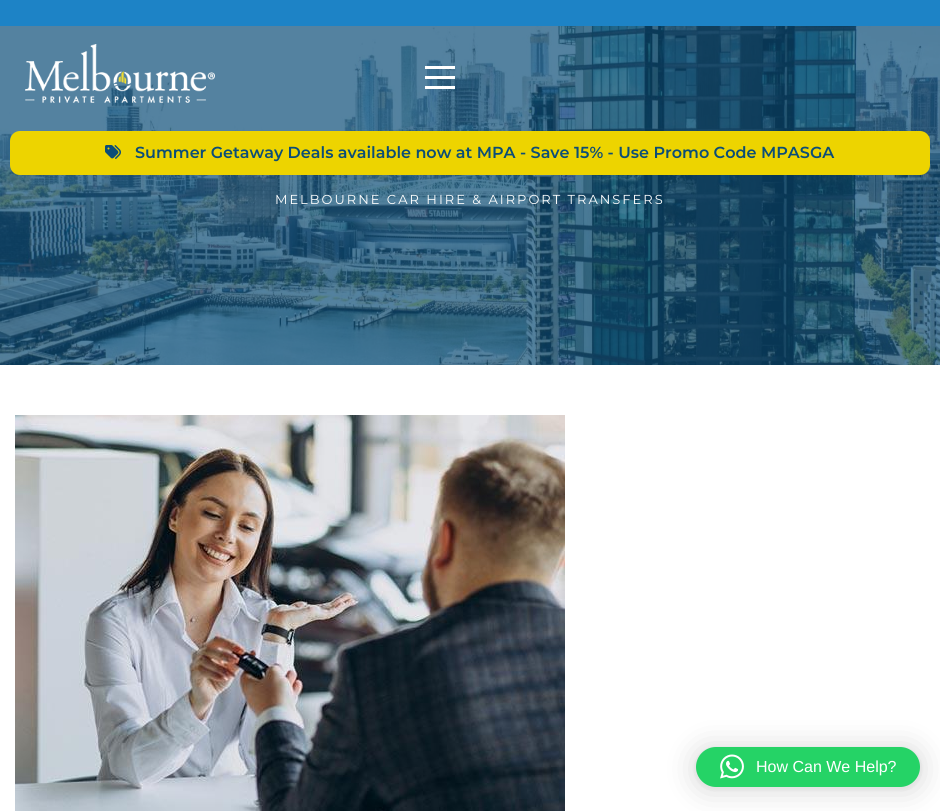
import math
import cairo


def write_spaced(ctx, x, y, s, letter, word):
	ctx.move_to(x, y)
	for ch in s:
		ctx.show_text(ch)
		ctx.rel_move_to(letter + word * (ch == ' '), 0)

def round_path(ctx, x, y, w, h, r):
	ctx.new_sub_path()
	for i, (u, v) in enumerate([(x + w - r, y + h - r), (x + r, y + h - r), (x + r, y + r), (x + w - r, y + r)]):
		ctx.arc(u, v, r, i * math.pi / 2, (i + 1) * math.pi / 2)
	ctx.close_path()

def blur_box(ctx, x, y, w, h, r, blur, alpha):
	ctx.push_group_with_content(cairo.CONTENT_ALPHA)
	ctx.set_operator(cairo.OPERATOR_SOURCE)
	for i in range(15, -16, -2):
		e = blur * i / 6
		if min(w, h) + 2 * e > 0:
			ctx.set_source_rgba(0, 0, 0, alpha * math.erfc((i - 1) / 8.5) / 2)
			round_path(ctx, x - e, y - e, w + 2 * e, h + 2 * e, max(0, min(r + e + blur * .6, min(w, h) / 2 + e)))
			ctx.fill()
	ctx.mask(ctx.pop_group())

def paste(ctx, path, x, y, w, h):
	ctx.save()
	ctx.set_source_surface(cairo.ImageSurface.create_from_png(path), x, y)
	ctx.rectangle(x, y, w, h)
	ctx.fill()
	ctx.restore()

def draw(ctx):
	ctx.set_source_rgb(1, 1, 1)
	ctx.paint()
	ctx.set_source_rgb(0.114, 0.514, 0.776)
	ctx.rectangle(0, 0, 940, 26)
	ctx.fill()
	paste(ctx, 'media/3.png', 0, 26, 940, 339)
	paste(ctx, 'media/1.png', 25, 44, 190, 59)
	ctx.set_source_rgb(1, 1, 1)
	ctx.rectangle(425, 86, 30, 3)
	ctx.rectangle(425, 76, 30, 3)
	ctx.rectangle(425, 66, 30, 3)
	ctx.fill()
	ctx.set_source_rgb(0.929, 0.831, 0)
	round_path(ctx, 10, 131, 920, 44, 10)
	ctx.fill()
	paste(ctx, 'media/2.png', 105, 145, 16, 14)
	ctx.select_font_face('Montserrat SemiBold')
	ctx.set_font_size(16)
	ctx.set_source_rgb(0.043, 0.302, 0.471)
	ctx.move_to(135, 158)
	ctx.show_text('Summer Getaway Deals available now at MPA - Save 15% - Use Promo Code MPASGA')
	ctx.select_font_face('Montserrat')
	ctx.set_font_size(13)
	ctx.set_source_rgb(1, 1, 1)
	write_spaced(ctx, 275, 204, 'MELBOURNE CAR HIRE & AIRPORT TRANSFERS', 2, 0)
	paste(ctx, 'media/4.png', 15, 415, 550, 396)
	ctx.set_source_rgb(0, 0, 0)
	blur_box(ctx, 696, 749, 224, 40, 20, 16, 0.16)
	blur_box(ctx, 696, 748, 224, 40, 20, 3, 0.06)
	ctx.set_source_rgb(0.145, 0.827, 0.4)
	round_path(ctx, 696, 747, 224, 40, 20)
	ctx.fill()
	paste(ctx, 'media/5.png', 720, 754, 24, 25)
	ctx.select_font_face('Liberation Sans')
	ctx.set_font_size(16)
	ctx.set_source_rgb(1, 1, 1)
	ctx.move_to(756, 772)
	ctx.show_text('How Can We Help?')


surface = cairo.ImageSurface(cairo.FORMAT_RGB24, 940, 811)
ctx = cairo.Context(surface)
options = cairo.FontOptions()
options.set_hint_metrics(cairo.HINT_METRICS_OFF)
options.set_hint_style(cairo.HINT_STYLE_NONE)
ctx.set_font_options(options)
ctx.set_miter_limit(4)
draw(ctx)
surface.write_to_png('image.png')
